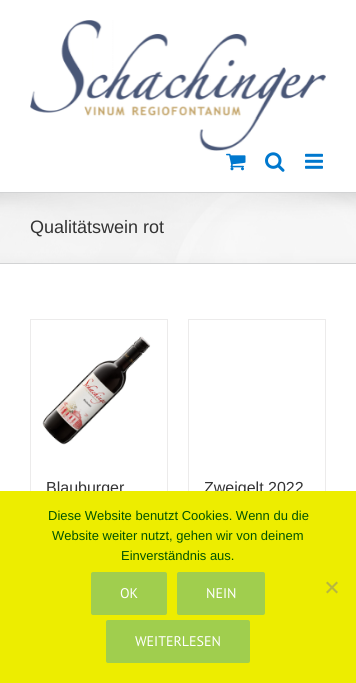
import math
import cairo


def round_path(ctx, x, y, w, h, r):
	ctx.new_sub_path()
	for i, (u, v) in enumerate([(x + w - r, y + h - r), (x + r, y + h - r), (x + r, y + r), (x + w - r, y + r)]):
		ctx.arc(u, v, r, i * math.pi / 2, (i + 1) * math.pi / 2)
	ctx.close_path()

def paste(ctx, path, x, y, w, h):
	ctx.save()
	ctx.set_source_surface(cairo.ImageSurface.create_from_png(path), x, y)
	ctx.rectangle(x, y, w, h)
	ctx.fill()
	ctx.restore()

def draw(ctx):
	ctx.set_source_rgb(1, 1, 1)
	ctx.paint()
	paste(ctx, 'media/1.png', 30, 20, 296, 131)
	paste(ctx, 'media/2.png', 226, 153, 20, 18)
	paste(ctx, 'media/3.png', 265, 152, 20, 20)
	paste(ctx, 'media/4.png', 305, 153, 18, 16)
	ctx.set_source_rgb(0.965, 0.965, 0.965)
	ctx.rectangle(0, 193, 356, 70)
	ctx.fill()
	paste(ctx, 'media/5.png', 0, 193, 356, 70)
	ctx.set_source_rgb(0.824, 0.827, 0.831)
	ctx.rectangle(0, 192, 356, 1)
	ctx.fill()
	ctx.rectangle(0, 263, 356, 1)
	ctx.fill()
	ctx.select_font_face('Liberation Sans')
	ctx.set_font_size(18)
	ctx.set_source_rgb(0.2, 0.2, 0.2)
	ctx.move_to(30, 233)
	ctx.show_text('Qualitätswein rot')
	ctx.set_source_rgb(0.922, 0.918, 0.918)
	ctx.rectangle(30, 319, 138, 1)
	ctx.rectangle(167, 319, 1, 172)
	ctx.rectangle(30, 319, 1, 172)
	ctx.fill()
	paste(ctx, 'media/6.png', 42, 336, 109, 109)
	ctx.set_font_size(16)
	ctx.set_source_rgb(0.2, 0.2, 0.2)
	ctx.move_to(46, 493)
	ctx.show_text('Blauburger')
	ctx.set_source_rgb(0.922, 0.918, 0.918)
	ctx.rectangle(188, 319, 138, 1)
	ctx.rectangle(325, 319, 1, 172)
	ctx.rectangle(188, 319, 1, 172)
	ctx.fill()
	ctx.set_source_rgb(0.2, 0.2, 0.2)
	ctx.move_to(204, 493)
	ctx.show_text('Zweigelt 2022')
	ctx.set_source_rgb(0.929, 0.929, 0)
	ctx.rectangle(0, 491, 356, 192)
	ctx.fill()
	ctx.set_font_size(13)
	ctx.set_source_rgb(0, 0.329, 0.008)
	for x, y, s in [
		(48, 520, 'Diese Website benutzt Cookies. Wenn du die'),
		(52, 540, 'Website weiter nutzt, gehen wir von deinem'),
		(121, 560, 'Einverständnis aus.'),
	]:
		ctx.move_to(x, y)
		ctx.show_text(s)
	ctx.set_source_rgb(0.627, 0.808, 0.306)
	round_path(ctx, 91, 572, 76, 43, 2)
	ctx.fill()
	ctx.select_font_face('PT Sans')
	ctx.set_font_size(14)
	ctx.set_source_rgb(1, 1, 1)
	ctx.move_to(120, 598)
	ctx.show_text('OK')
	ctx.set_source_rgb(0.627, 0.808, 0.306)
	round_path(ctx, 177, 572, 88, 43, 2)
	ctx.fill()
	ctx.set_source_rgb(1, 1, 1)
	ctx.move_to(206, 598)
	ctx.show_text('NEIN')
	ctx.set_source_rgb(0.627, 0.808, 0.306)
	round_path(ctx, 106, 620, 144, 43, 2)
	ctx.fill()
	ctx.set_source_rgb(1, 1, 1)
	ctx.move_to(135, 646)
	ctx.show_text('WEITERLESEN')
	ctx.set_source_rgb(0.718, 0.718, 0.251)
	ctx.new_path()
	ctx.move_to(336.5, 581.5)
	ctx.line_to(338, 583)
	ctx.line_to(327.5, 593.5)
	ctx.line_to(326, 592)
	ctx.close_path()
	ctx.fill()
	ctx.new_path()
	ctx.move_to(326, 583)
	ctx.line_to(327.5, 581.5)
	ctx.line_to(338, 592)
	ctx.line_to(336.5, 593.5)
	ctx.close_path()
	ctx.fill()


surface = cairo.ImageSurface(cairo.FORMAT_RGB24, 356, 683)
ctx = cairo.Context(surface)
options = cairo.FontOptions()
options.set_hint_metrics(cairo.HINT_METRICS_OFF)
options.set_hint_style(cairo.HINT_STYLE_NONE)
ctx.set_font_options(options)
ctx.set_miter_limit(4)
draw(ctx)
surface.write_to_png('image.png')
